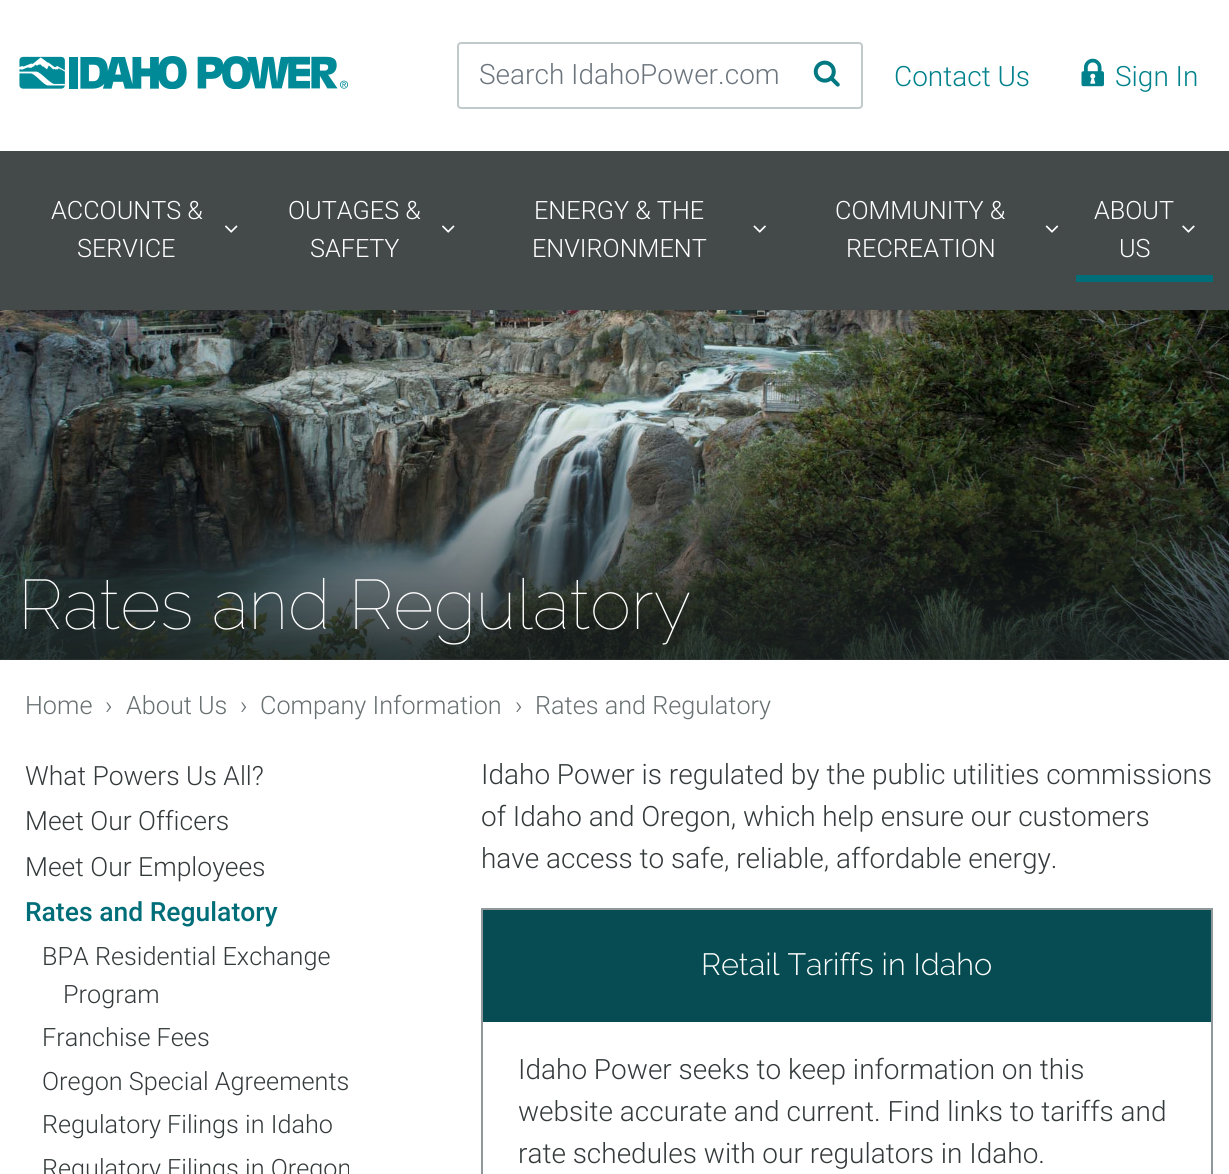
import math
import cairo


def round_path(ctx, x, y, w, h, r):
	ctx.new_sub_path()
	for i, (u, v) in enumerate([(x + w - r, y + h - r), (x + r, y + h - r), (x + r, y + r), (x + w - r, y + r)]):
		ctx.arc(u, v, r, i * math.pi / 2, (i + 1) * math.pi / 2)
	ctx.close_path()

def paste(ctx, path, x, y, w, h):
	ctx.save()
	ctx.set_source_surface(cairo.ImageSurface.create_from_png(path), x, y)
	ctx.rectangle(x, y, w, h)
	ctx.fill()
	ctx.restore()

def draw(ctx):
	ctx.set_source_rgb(1, 1, 1)
	ctx.paint()
	paste(ctx, 'media/1.png', 19, 56, 329, 33)
	round_path(ctx, 458, 43, 404, 65, 3)
	ctx.set_source_rgb(0.757, 0.792, 0.796)
	ctx.stroke()
	ctx.select_font_face('Roboto Light')
	ctx.set_font_size(28)
	ctx.set_source_rgb(0.424, 0.459, 0.49)
	ctx.move_to(479, 84)
	ctx.show_text('Search IdahoPower.com')
	paste(ctx, 'media/2.png', 813, 60, 27, 27)
	ctx.set_source_rgb(0, 0.506, 0.549)
	ctx.move_to(894, 86)
	ctx.show_text('Contact Us')
	paste(ctx, 'media/3.png', 1081, 58, 23, 29)
	ctx.move_to(1115, 86)
	ctx.show_text('Sign In')
	ctx.set_source_rgb(0.267, 0.286, 0.29)
	ctx.rectangle(0, 151, 1229, 159)
	ctx.fill()
	ctx.set_font_size(25.25)
	ctx.set_source_rgb(1, 1, 1)
	ctx.move_to(51, 219)
	ctx.show_text('ACCOUNTS &')
	paste(ctx, 'media/4.png', 225, 225, 13, 8)
	ctx.move_to(77, 257)
	ctx.show_text('SERVICE')
	ctx.move_to(288, 219)
	ctx.show_text('OUTAGES &')
	paste(ctx, 'media/4.png', 442, 225, 13, 8)
	ctx.move_to(310, 257)
	ctx.show_text('SAFETY')
	ctx.move_to(534, 219)
	ctx.show_text('ENERGY & THE')
	paste(ctx, 'media/5.png', 753, 225, 13, 8)
	ctx.move_to(532, 257)
	ctx.show_text('ENVIRONMENT')
	ctx.move_to(835, 219)
	ctx.show_text('COMMUNITY &')
	paste(ctx, 'media/6.png', 1045, 225, 14, 8)
	ctx.move_to(846, 257)
	ctx.show_text('RECREATION')
	ctx.set_source_rgb(0, 0.431, 0.471)
	ctx.rectangle(1076, 275, 137, 7)
	ctx.fill()
	ctx.set_source_rgb(1, 1, 1)
	ctx.move_to(1094, 219)
	ctx.show_text('ABOUT')
	paste(ctx, 'media/7.png', 1182, 225, 13, 8)
	ctx.move_to(1119, 257)
	ctx.show_text('US')
	paste(ctx, 'media/8.png', 0, 310, 1229, 350)
	gradient = cairo.LinearGradient(615, 310, 615, 660)
	gradient.add_color_stop_rgba(0.3, 0.102, 0.125, 0.129, 0)
	gradient.add_color_stop_rgba(0.95, 0.102, 0.125, 0.129, 0.8)
	ctx.set_source(gradient)
	ctx.rectangle(0, 421, 1229, 239)
	ctx.fill()
	ctx.select_font_face('Raleway Thin')
	ctx.set_font_size(70)
	ctx.set_source_rgb(1, 1, 1)
	ctx.move_to(18, 629)
	ctx.show_text('Rates and Regulatory')
	ctx.select_font_face('Roboto Light')
	ctx.set_font_size(25.25)
	ctx.set_source_rgb(0.404, 0.435, 0.439)
	for x, y, s in [
		(25, 714, 'Home'),
		(105, 714, '›'),
		(126, 714, 'About Us'),
		(240, 714, '›'),
		(260, 714, 'Company Information'),
		(515, 714, '›'),
		(535, 714, 'Rates and Regulatory'),
	]:
		ctx.move_to(x, y)
		ctx.show_text(s)
	ctx.set_font_size(26.5)
	ctx.set_source_rgb(0.204, 0.227, 0.231)
	for x, y, s in [
		(25, 785, 'What Powers Us All?'),
		(25, 830, 'Meet Our Officers'),
		(25, 876, 'Meet Our Employees'),
	]:
		ctx.move_to(x, y)
		ctx.show_text(s)
	ctx.select_font_face('Roboto Medium')
	ctx.set_source_rgb(0, 0.431, 0.471)
	ctx.move_to(25, 921)
	ctx.show_text('Rates and Regulatory')
	ctx.select_font_face('Roboto Light')
	ctx.set_font_size(25.25)
	ctx.set_source_rgb(0.204, 0.227, 0.231)
	for x, y, s in [
		(42, 965, 'BPA Residential Exchange'),
		(63, 1003, 'Program'),
		(42, 1046, 'Franchise Fees'),
		(42, 1090, 'Oregon Special Agreements'),
		(42, 1133, 'Regulatory Filings in Idaho'),
		(42, 1177, 'Regulatory Filings in Oregon'),
	]:
		ctx.move_to(x, y)
		ctx.show_text(s)
	ctx.set_font_size(28)
	for x, y, s in [
		(481, 784, 'Idaho Power is regulated by the public utilities commissions'),
		(481, 826, 'of Idaho and Oregon, which help ensure our customers'),
		(481, 868, 'have access to safe, reliable, affordable energy.'),
	]:
		ctx.move_to(x, y)
		ctx.show_text(s)
	ctx.rectangle(482, 909, 730, 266)
	ctx.set_source_rgb(0.569, 0.596, 0.6)
	ctx.stroke()
	ctx.set_source_rgb(0.027, 0.298, 0.322)
	ctx.rectangle(483, 910, 728, 112)
	ctx.fill()
	ctx.select_font_face('Raleway Light')
	ctx.set_font_size(30.75)
	ctx.set_source_rgb(1, 1, 1)
	ctx.move_to(701, 975)
	ctx.show_text('Retail Tariffs in Idaho')
	ctx.select_font_face('Roboto Light')
	ctx.set_font_size(28)
	ctx.set_source_rgb(0.204, 0.227, 0.231)
	for x, y, s in [
		(518, 1079, 'Idaho Power seeks to keep information on this'),
		(518, 1121, 'website accurate and current. Find links to tariffs and'),
		(518, 1163, 'rate schedules with our regulators in Idaho.'),
	]:
		ctx.move_to(x, y)
		ctx.show_text(s)


surface = cairo.ImageSurface(cairo.FORMAT_RGB24, 1229, 1174)
ctx = cairo.Context(surface)
options = cairo.FontOptions()
options.set_hint_metrics(cairo.HINT_METRICS_OFF)
options.set_hint_style(cairo.HINT_STYLE_NONE)
ctx.set_font_options(options)
ctx.set_miter_limit(4)
draw(ctx)
surface.write_to_png('image.png')
